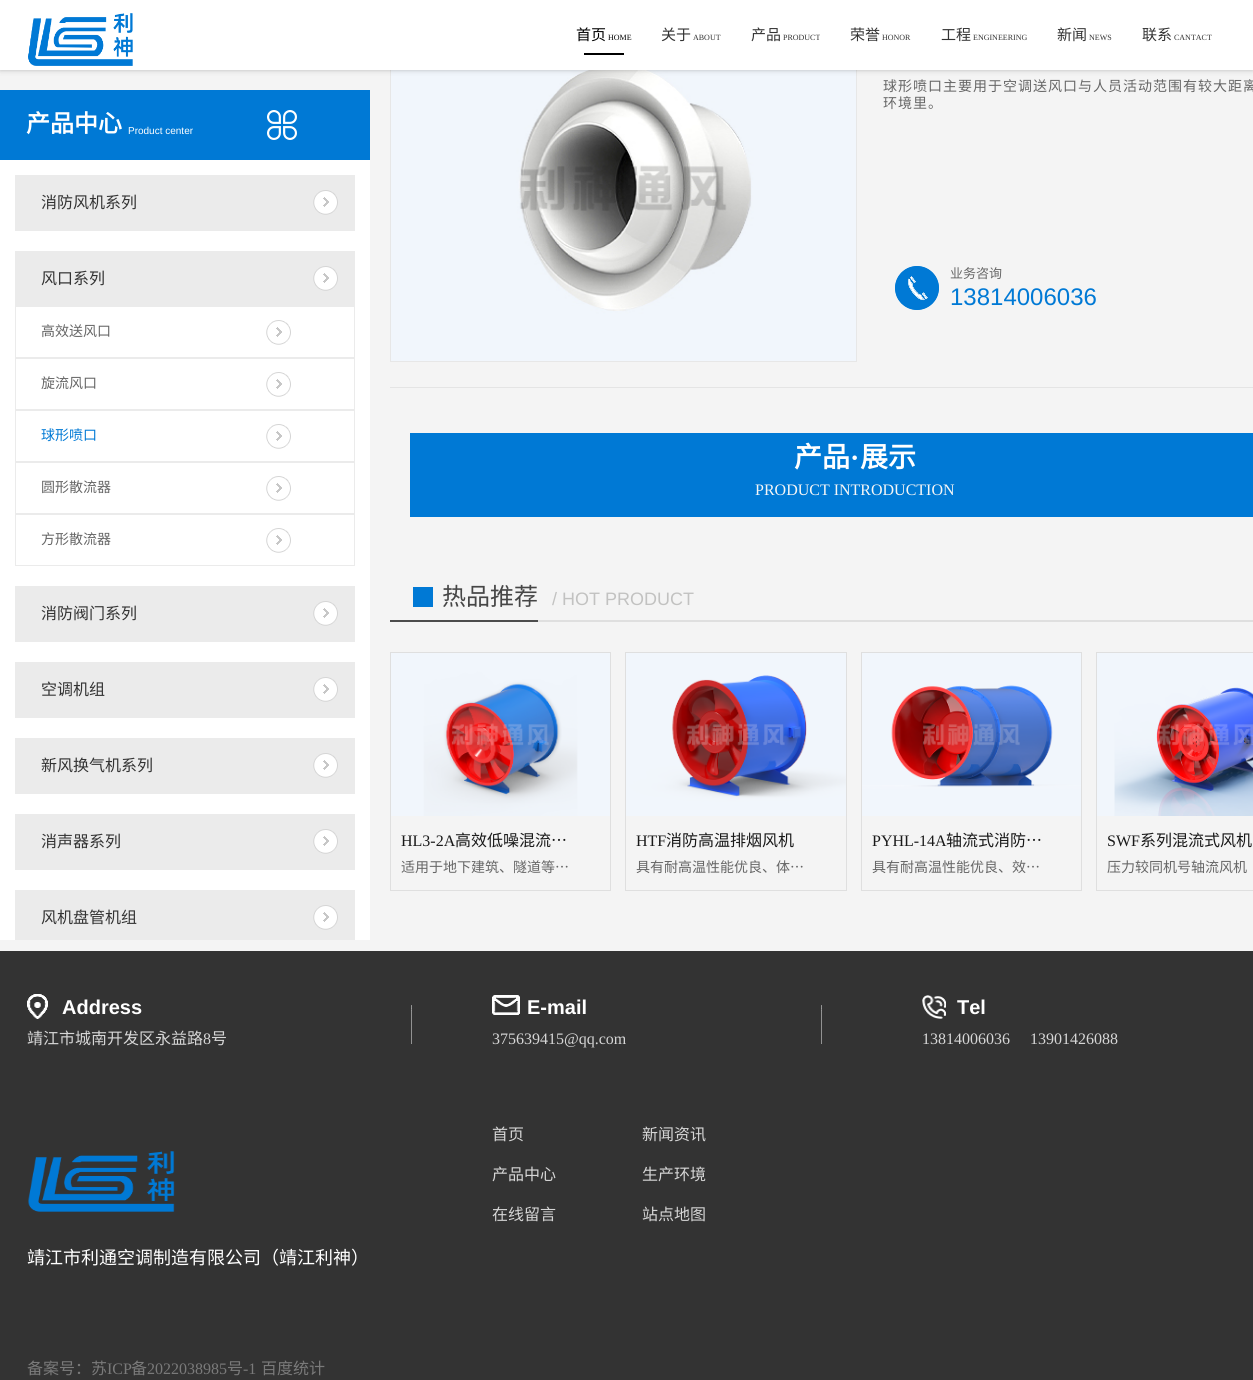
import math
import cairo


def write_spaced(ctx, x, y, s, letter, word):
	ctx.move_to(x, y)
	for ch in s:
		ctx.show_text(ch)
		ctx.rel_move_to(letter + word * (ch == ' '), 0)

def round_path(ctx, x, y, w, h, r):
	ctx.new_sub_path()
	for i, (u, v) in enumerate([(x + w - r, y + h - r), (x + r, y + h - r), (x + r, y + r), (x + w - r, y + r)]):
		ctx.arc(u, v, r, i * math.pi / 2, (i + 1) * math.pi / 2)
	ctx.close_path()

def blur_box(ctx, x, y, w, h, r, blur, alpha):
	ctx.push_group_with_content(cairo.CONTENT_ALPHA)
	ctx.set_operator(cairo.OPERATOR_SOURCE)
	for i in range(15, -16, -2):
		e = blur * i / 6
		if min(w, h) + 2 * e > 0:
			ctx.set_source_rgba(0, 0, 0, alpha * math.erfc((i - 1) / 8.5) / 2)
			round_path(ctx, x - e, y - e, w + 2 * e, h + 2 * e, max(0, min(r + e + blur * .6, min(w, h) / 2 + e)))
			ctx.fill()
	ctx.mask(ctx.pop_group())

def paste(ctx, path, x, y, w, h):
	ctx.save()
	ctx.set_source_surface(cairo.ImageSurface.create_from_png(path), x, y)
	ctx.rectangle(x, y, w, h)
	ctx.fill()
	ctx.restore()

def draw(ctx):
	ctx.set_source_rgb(0.957, 0.957, 0.957)
	ctx.paint()
	ctx.rectangle(390.5, 14.5, 466, 347)
	ctx.set_source_rgb(0.906, 0.906, 0.906)
	ctx.set_line_width(1)
	ctx.stroke()
	paste(ctx, 'media/5.png', 391, 70, 465, 291)
	ctx.set_source_rgb(0.2, 0.2, 0.2)
	blur_box(ctx, 0, -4, 1253, 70, 0, 4, 1)
	ctx.set_source_rgb(1, 1, 1)
	ctx.rectangle(0, 0, 1253, 70)
	ctx.fill()
	paste(ctx, 'media/1.png', 28, 13, 105, 53)
	ctx.select_font_face('Noto Sans CJK SC')
	ctx.set_font_size(15)
	ctx.set_source_rgb(0, 0, 0)
	ctx.move_to(576, 40)
	ctx.show_text('首页')
	ctx.select_font_face('Liberation Serif')
	ctx.set_font_size(8)
	ctx.move_to(608, 40)
	ctx.show_text('HOME')
	ctx.rectangle(584, 53, 40, 2)
	ctx.fill()
	ctx.select_font_face('Noto Sans CJK SC')
	ctx.set_font_size(15)
	ctx.set_source_rgb(0.2, 0.2, 0.2)
	ctx.move_to(661, 40)
	ctx.show_text('关于')
	ctx.select_font_face('Liberation Serif')
	ctx.set_font_size(8)
	ctx.move_to(693, 40)
	ctx.show_text('ABOUT')
	ctx.select_font_face('Noto Sans CJK SC')
	ctx.set_font_size(15)
	ctx.move_to(751, 40)
	ctx.show_text('产品')
	ctx.select_font_face('Liberation Serif')
	ctx.set_font_size(8)
	ctx.move_to(783, 40)
	ctx.show_text('PRODUCT')
	ctx.select_font_face('Noto Sans CJK SC')
	ctx.set_font_size(15)
	ctx.move_to(850, 40)
	ctx.show_text('荣誉')
	ctx.select_font_face('Liberation Serif')
	ctx.set_font_size(8)
	ctx.move_to(882, 40)
	ctx.show_text('HONOR')
	ctx.select_font_face('Noto Sans CJK SC')
	ctx.set_font_size(15)
	ctx.move_to(941, 40)
	ctx.show_text('工程')
	ctx.select_font_face('Liberation Serif')
	ctx.set_font_size(8)
	ctx.move_to(973, 40)
	ctx.show_text('ENGINEERING')
	ctx.select_font_face('Noto Sans CJK SC')
	ctx.set_font_size(15)
	ctx.move_to(1057, 40)
	ctx.show_text('新闻')
	ctx.select_font_face('Liberation Serif')
	ctx.set_font_size(8)
	ctx.move_to(1089, 40)
	ctx.show_text('NEWS')
	ctx.select_font_face('Noto Sans CJK SC')
	ctx.set_font_size(15)
	ctx.move_to(1142, 40)
	ctx.show_text('联系')
	ctx.select_font_face('Liberation Serif')
	ctx.set_font_size(8)
	ctx.move_to(1174, 40)
	ctx.show_text('CANTACT')
	ctx.set_source_rgb(0, 0.475, 0.835)
	ctx.rectangle(0, 90, 370, 70)
	ctx.fill()
	paste(ctx, 'media/2.png', 267, 110, 30, 30)
	ctx.select_font_face('Noto Sans CJK SC', cairo.FONT_SLANT_NORMAL, cairo.FONT_WEIGHT_BOLD)
	ctx.set_font_size(24)
	ctx.set_source_rgb(1, 1, 1)
	ctx.move_to(26, 132)
	ctx.show_text('产品中心')
	ctx.select_font_face('Liberation Sans')
	ctx.set_font_size(10)
	ctx.move_to(128, 134)
	ctx.show_text('Product center')
	ctx.rectangle(0, 160, 370, 780)
	ctx.fill()
	ctx.set_source_rgb(0.918, 0.918, 0.918)
	ctx.rectangle(15, 175, 340, 56)
	ctx.fill()
	ctx.select_font_face('Noto Sans CJK SC')
	ctx.set_font_size(16)
	ctx.set_source_rgb(0.2, 0.2, 0.2)
	ctx.move_to(41, 208)
	ctx.show_text('消防风机系列')
	paste(ctx, 'media/3.png', 313, 190, 25, 25)
	ctx.set_source_rgb(0.918, 0.918, 0.918)
	ctx.rectangle(15, 251, 340, 56)
	ctx.fill()
	ctx.set_source_rgb(0.2, 0.2, 0.2)
	ctx.move_to(41, 284)
	ctx.show_text('风口系列')
	paste(ctx, 'media/3.png', 313, 266, 25, 25)
	paste(ctx, 'media/4.png', 266, 320, 25, 25)
	ctx.set_source_rgb(0.918, 0.918, 0.918)
	ctx.rectangle(354, 307, 1, 51)
	ctx.rectangle(15, 357, 340, 1)
	ctx.rectangle(15, 307, 1, 51)
	ctx.fill()
	ctx.set_font_size(14)
	ctx.set_source_rgb(0.4, 0.4, 0.4)
	ctx.move_to(41, 336)
	ctx.show_text('高效送风口')
	paste(ctx, 'media/4.png', 266, 372, 25, 25)
	ctx.rectangle(15.5, 358.5, 339, 51)
	ctx.set_source_rgb(0.918, 0.918, 0.918)
	ctx.stroke()
	ctx.set_source_rgb(0.4, 0.4, 0.4)
	ctx.move_to(41, 388)
	ctx.show_text('旋流风口')
	paste(ctx, 'media/4.png', 266, 424, 25, 25)
	ctx.rectangle(15.5, 410.5, 339, 51)
	ctx.set_source_rgb(0.918, 0.918, 0.918)
	ctx.stroke()
	ctx.set_source_rgb(0, 0.475, 0.835)
	ctx.move_to(41, 440)
	ctx.show_text('球形喷口')
	paste(ctx, 'media/4.png', 266, 476, 25, 25)
	ctx.rectangle(15.5, 462.5, 339, 51)
	ctx.set_source_rgb(0.918, 0.918, 0.918)
	ctx.stroke()
	ctx.set_source_rgb(0.4, 0.4, 0.4)
	ctx.move_to(41, 492)
	ctx.show_text('圆形散流器')
	paste(ctx, 'media/4.png', 266, 528, 25, 25)
	ctx.rectangle(15.5, 514.5, 339, 51)
	ctx.set_source_rgb(0.918, 0.918, 0.918)
	ctx.stroke()
	ctx.set_source_rgb(0.4, 0.4, 0.4)
	ctx.move_to(41, 544)
	ctx.show_text('方形散流器')
	ctx.set_source_rgb(0.918, 0.918, 0.918)
	ctx.rectangle(15, 586, 340, 56)
	ctx.fill()
	ctx.set_font_size(16)
	ctx.set_source_rgb(0.2, 0.2, 0.2)
	ctx.move_to(41, 619)
	ctx.show_text('消防阀门系列')
	paste(ctx, 'media/3.png', 313, 601, 25, 25)
	ctx.set_source_rgb(0.918, 0.918, 0.918)
	ctx.rectangle(15, 662, 340, 56)
	ctx.fill()
	ctx.set_source_rgb(0.2, 0.2, 0.2)
	ctx.move_to(41, 695)
	ctx.show_text('空调机组')
	paste(ctx, 'media/3.png', 313, 677, 25, 25)
	ctx.set_source_rgb(0.918, 0.918, 0.918)
	ctx.rectangle(15, 738, 340, 56)
	ctx.fill()
	ctx.set_source_rgb(0.2, 0.2, 0.2)
	ctx.move_to(41, 771)
	ctx.show_text('新风换气机系列')
	paste(ctx, 'media/3.png', 313, 753, 25, 25)
	ctx.set_source_rgb(0.918, 0.918, 0.918)
	ctx.rectangle(15, 814, 340, 56)
	ctx.fill()
	ctx.set_source_rgb(0.2, 0.2, 0.2)
	ctx.move_to(41, 847)
	ctx.show_text('消声器系列')
	paste(ctx, 'media/3.png', 313, 829, 25, 25)
	ctx.set_source_rgb(0.918, 0.918, 0.918)
	ctx.rectangle(15, 890, 340, 50)
	ctx.fill()
	ctx.set_source_rgb(0.2, 0.2, 0.2)
	ctx.move_to(41, 923)
	ctx.show_text('风机盘管机组')
	paste(ctx, 'media/3.png', 313, 905, 25, 25)
	ctx.set_font_size(14)
	ctx.set_source_rgb(0.4, 0.4, 0.4)
	write_spaced(ctx, 883, 91, '球形喷口主要用于空调送风口与人员活动范围有较大距离', 1, 0)
	write_spaced(ctx, 883, 108, '环境里。', 1, 0)
	ctx.set_source_rgb(0, 0.475, 0.835)
	ctx.new_path()
	ctx.arc(917, 288, 22, 0, 2 * math.pi)
	ctx.fill()
	paste(ctx, 'media/6.png', 895, 266, 44, 44)
	ctx.set_font_size(13)
	ctx.set_source_rgb(0.4, 0.4, 0.4)
	ctx.move_to(950, 278)
	ctx.show_text('业务咨询')
	ctx.select_font_face('Liberation Sans')
	ctx.set_font_size(24)
	ctx.set_source_rgb(0, 0.475, 0.835)
	ctx.move_to(950, 305)
	ctx.show_text('13814006036')
	ctx.set_source_rgb(0.894, 0.894, 0.894)
	ctx.rectangle(390, 387, 863, 1)
	ctx.fill()
	ctx.set_source_rgb(0, 0.475, 0.835)
	ctx.rectangle(410, 433, 843, 84)
	ctx.fill()
	ctx.select_font_face('Noto Sans CJK SC', cairo.FONT_SLANT_NORMAL, cairo.FONT_WEIGHT_BOLD)
	ctx.set_font_size(28)
	ctx.set_source_rgb(1, 1, 1)
	ctx.move_to(794, 467)
	ctx.show_text('产品')
	ctx.select_font_face('Liberation Serif', cairo.FONT_SLANT_NORMAL, cairo.FONT_WEIGHT_BOLD)
	ctx.move_to(850, 467)
	ctx.show_text('·')
	ctx.select_font_face('Noto Sans CJK SC', cairo.FONT_SLANT_NORMAL, cairo.FONT_WEIGHT_BOLD)
	ctx.move_to(860, 467)
	ctx.show_text('展示')
	ctx.select_font_face('Liberation Serif')
	ctx.set_font_size(16)
	ctx.set_source_rgb(0.961, 0.961, 0.961)
	ctx.move_to(755, 495)
	ctx.show_text('PRODUCT INTRODUCTION')
	ctx.set_source_rgb(0.875, 0.875, 0.875)
	ctx.rectangle(538, 620, 715, 2)
	ctx.fill()
	ctx.set_source_rgb(0, 0.475, 0.835)
	ctx.rectangle(413, 587, 20, 20)
	ctx.fill()
	ctx.set_source_rgb(0.298, 0.298, 0.298)
	ctx.rectangle(390, 620, 148, 2)
	ctx.fill()
	ctx.select_font_face('Noto Sans CJK SC')
	ctx.set_font_size(24)
	ctx.set_source_rgb(0.275, 0.275, 0.275)
	ctx.move_to(442, 605)
	ctx.show_text('热品推荐')
	ctx.select_font_face('Liberation Sans')
	ctx.set_font_size(18)
	ctx.set_source_rgb(0.761, 0.761, 0.757)
	ctx.move_to(552, 605)
	ctx.show_text('/ HOT PRODUCT')
	ctx.rectangle(390.5, 652.5, 220, 238)
	ctx.set_source_rgb(0.875, 0.875, 0.875)
	ctx.stroke()
	paste(ctx, 'media/7.png', 391, 653, 219, 163)
	ctx.select_font_face('Liberation Serif')
	ctx.set_font_size(16)
	ctx.set_source_rgb(0.098, 0.098, 0.098)
	ctx.move_to(401, 846)
	ctx.show_text('HL3-2A')
	ctx.select_font_face('Noto Sans CJK SC')
	ctx.move_to(455, 846)
	ctx.show_text('高效低噪混流…')
	ctx.set_font_size(14)
	ctx.set_source_rgb(0.4, 0.4, 0.4)
	ctx.move_to(401, 872)
	ctx.show_text('适用于地下建筑、隧道等…')
	ctx.rectangle(625.5, 652.5, 221, 238)
	ctx.set_source_rgb(0.875, 0.875, 0.875)
	ctx.stroke()
	paste(ctx, 'media/8.png', 626, 653, 220, 163)
	ctx.select_font_face('Liberation Serif')
	ctx.set_font_size(16)
	ctx.set_source_rgb(0.098, 0.098, 0.098)
	ctx.move_to(636, 846)
	ctx.show_text('HTF')
	ctx.select_font_face('Noto Sans CJK SC')
	ctx.move_to(666, 846)
	ctx.show_text('消防高温排烟风机')
	ctx.set_font_size(14)
	ctx.set_source_rgb(0.4, 0.4, 0.4)
	ctx.move_to(636, 872)
	ctx.show_text('具有耐高温性能优良、体…')
	ctx.rectangle(861.5, 652.5, 220, 238)
	ctx.set_source_rgb(0.875, 0.875, 0.875)
	ctx.stroke()
	paste(ctx, 'media/9.png', 862, 653, 219, 163)
	ctx.select_font_face('Liberation Serif')
	ctx.set_font_size(16)
	ctx.set_source_rgb(0.098, 0.098, 0.098)
	ctx.move_to(872, 846)
	ctx.show_text('PYHL-14A')
	ctx.select_font_face('Noto Sans CJK SC')
	ctx.move_to(946, 846)
	ctx.show_text('轴流式消防…')
	ctx.set_font_size(14)
	ctx.set_source_rgb(0.4, 0.4, 0.4)
	ctx.move_to(872, 872)
	ctx.show_text('具有耐高温性能优良、效…')
	ctx.rectangle(1096.5, 652.5, 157, 238)
	ctx.set_source_rgb(0.875, 0.875, 0.875)
	ctx.stroke()
	paste(ctx, 'media/10.png', 1097, 653, 156, 163)
	ctx.select_font_face('Liberation Serif')
	ctx.set_font_size(16)
	ctx.set_source_rgb(0.098, 0.098, 0.098)
	ctx.move_to(1107, 846)
	ctx.show_text('SWF')
	ctx.select_font_face('Noto Sans CJK SC')
	ctx.move_to(1140, 846)
	ctx.show_text('系列混流式风机')
	ctx.set_font_size(14)
	ctx.set_source_rgb(0.4, 0.4, 0.4)
	ctx.move_to(1107, 872)
	ctx.show_text('压力较同机号轴流风机')
	ctx.set_source_rgb(0.2, 0.2, 0.2)
	ctx.rectangle(0, 951, 1253, 429)
	ctx.fill()
	paste(ctx, 'media/11.png', 411, 1005, 1, 39)
	paste(ctx, 'media/12.png', 27, 994, 21, 25)
	ctx.select_font_face('Liberation Sans', cairo.FONT_SLANT_NORMAL, cairo.FONT_WEIGHT_BOLD)
	ctx.set_font_size(20)
	ctx.set_source_rgb(1, 1, 1)
	ctx.move_to(62, 1014)
	ctx.show_text('Address')
	ctx.select_font_face('Noto Sans CJK SC')
	ctx.set_font_size(16)
	ctx.set_source_rgb(0.839, 0.839, 0.839)
	ctx.move_to(27, 1044)
	ctx.show_text('靖江市城南开发区永益路')
	ctx.select_font_face('Liberation Serif')
	ctx.move_to(203, 1044)
	ctx.show_text('8')
	ctx.select_font_face('Noto Sans CJK SC')
	ctx.move_to(211, 1044)
	ctx.show_text('号')
	paste(ctx, 'media/11.png', 821, 1005, 1, 39)
	paste(ctx, 'media/13.png', 492, 995, 28, 20)
	ctx.select_font_face('Liberation Sans', cairo.FONT_SLANT_NORMAL, cairo.FONT_WEIGHT_BOLD)
	ctx.set_font_size(20)
	ctx.set_source_rgb(1, 1, 1)
	ctx.move_to(527, 1014)
	ctx.show_text('E-mail')
	ctx.select_font_face('Liberation Serif')
	ctx.set_font_size(16)
	ctx.set_source_rgb(0.839, 0.839, 0.839)
	ctx.move_to(492, 1044)
	ctx.show_text('375639415@qq.com')
	paste(ctx, 'media/14.png', 922, 995, 24, 24)
	ctx.select_font_face('Liberation Sans', cairo.FONT_SLANT_NORMAL, cairo.FONT_WEIGHT_BOLD)
	ctx.set_font_size(20)
	ctx.set_source_rgb(1, 1, 1)
	ctx.move_to(957, 1014)
	ctx.show_text('Tel')
	ctx.select_font_face('Liberation Serif')
	ctx.set_font_size(16)
	ctx.set_source_rgb(0.839, 0.839, 0.839)
	ctx.move_to(922, 1044)
	ctx.show_text('13814006036')
	ctx.move_to(1030, 1044)
	ctx.show_text('13901426088')
	ctx.select_font_face('Noto Sans CJK SC')
	for x, y, s in [
		(492, 1140, '首页'),
		(642, 1140, '新闻资讯'),
		(492, 1180, '产品中心'),
		(642, 1180, '生产环境'),
		(492, 1220, '在线留言'),
		(642, 1220, '站点地图'),
	]:
		ctx.move_to(x, y)
		ctx.show_text(s)
	paste(ctx, 'media/15.png', 28, 1151, 147, 61)
	ctx.set_font_size(18)
	ctx.set_source_rgb(1, 1, 1)
	ctx.move_to(27, 1264)
	ctx.show_text('靖江市利通空调制造有限公司（靖江利神）')
	ctx.set_font_size(16)
	ctx.set_source_rgb(0.478, 0.478, 0.478)
	ctx.move_to(27, 1374)
	ctx.show_text('备案号：苏')
	ctx.select_font_face('Liberation Serif')
	ctx.move_to(107, 1374)
	ctx.show_text('ICP')
	ctx.select_font_face('Noto Sans CJK SC')
	ctx.move_to(131, 1374)
	ctx.show_text('备')
	ctx.select_font_face('Liberation Serif')
	ctx.move_to(147, 1374)
	ctx.show_text('2022038985')
	ctx.select_font_face('Noto Sans CJK SC')
	ctx.move_to(227, 1374)
	ctx.show_text('号')
	ctx.select_font_face('Liberation Serif')
	ctx.move_to(243, 1374)
	ctx.show_text('-1')
	ctx.select_font_face('Noto Sans CJK SC')
	ctx.move_to(261, 1374)
	ctx.show_text('百度统计')


surface = cairo.ImageSurface(cairo.FORMAT_RGB24, 1253, 1380)
ctx = cairo.Context(surface)
options = cairo.FontOptions()
options.set_hint_metrics(cairo.HINT_METRICS_OFF)
options.set_hint_style(cairo.HINT_STYLE_NONE)
ctx.set_font_options(options)
ctx.set_miter_limit(4)
draw(ctx)
surface.write_to_png('image.png')
